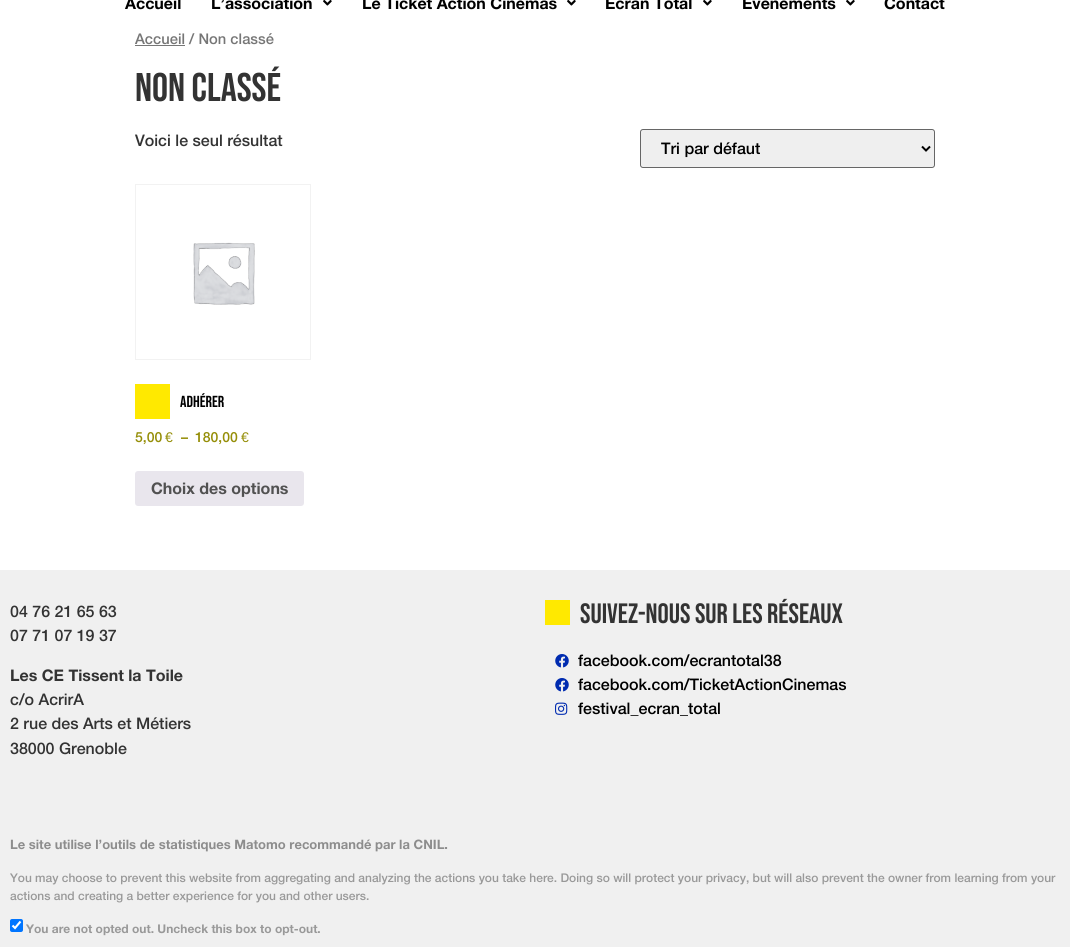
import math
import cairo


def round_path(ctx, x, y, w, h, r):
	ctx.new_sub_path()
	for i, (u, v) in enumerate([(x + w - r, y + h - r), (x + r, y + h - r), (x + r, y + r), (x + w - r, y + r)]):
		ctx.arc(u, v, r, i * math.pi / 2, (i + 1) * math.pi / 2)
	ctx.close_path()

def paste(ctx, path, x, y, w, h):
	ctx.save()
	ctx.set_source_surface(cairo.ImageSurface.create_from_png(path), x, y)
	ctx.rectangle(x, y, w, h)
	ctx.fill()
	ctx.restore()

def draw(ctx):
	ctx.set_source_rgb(1, 1, 1)
	ctx.paint()
	ctx.select_font_face('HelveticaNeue', cairo.FONT_SLANT_NORMAL, cairo.FONT_WEIGHT_BOLD)
	ctx.set_font_size(16)
	ctx.set_source_rgb(0, 0, 0)
	ctx.move_to(125, 9)
	ctx.show_text('Accueil')
	ctx.move_to(211, 9)
	ctx.show_text('L’association')
	paste(ctx, 'media/1.png', 323, 0, 9, 6)
	ctx.move_to(362, 9)
	ctx.show_text('Le Ticket Action Cinémas')
	paste(ctx, 'media/1.png', 567, 0, 9, 6)
	ctx.move_to(605, 9)
	ctx.show_text('Écran Total')
	paste(ctx, 'media/1.png', 703, 0, 9, 6)
	ctx.move_to(742, 9)
	ctx.show_text('Événements')
	paste(ctx, 'media/1.png', 846, 0, 9, 6)
	ctx.move_to(884, 9)
	ctx.show_text('Contact')
	ctx.select_font_face('HelveticaNeue Medium')
	ctx.set_font_size(14.75)
	ctx.set_source_rgb(0.463, 0.463, 0.463)
	ctx.move_to(135, 44)
	ctx.show_text('Accueil / Non classé')
	ctx.rectangle(135, 45, 50, 1)
	ctx.fill()
	ctx.select_font_face('Bebas Neue')
	ctx.set_font_size(40)
	ctx.set_source_rgb(0.2, 0.2, 0.2)
	ctx.move_to(135, 101)
	ctx.show_text('Non classé')
	ctx.select_font_face('HelveticaNeue Medium')
	ctx.set_font_size(16)
	ctx.move_to(135, 146)
	ctx.show_text('Voici le seul résultat')
	ctx.set_source_rgb(0.937, 0.937, 0.937)
	round_path(ctx, 640.5, 129.5, 294, 38, 2.5)
	ctx.fill_preserve()
	ctx.set_source_rgb(0.4, 0.4, 0.4)
	ctx.set_line_width(1)
	ctx.stroke()
	ctx.new_path()
	ctx.move_to(922, 146.5)
	ctx.line_to(926, 150.5)
	ctx.line_to(930, 146.5)
	ctx.set_source_rgb(0, 0, 0)
	ctx.set_line_width(2)
	ctx.stroke()
	ctx.move_to(661, 154)
	ctx.show_text('Tri par défaut')
	ctx.rectangle(135.5, 184.5, 175, 175)
	ctx.set_source_rgb(0.949, 0.949, 0.949)
	ctx.set_line_width(1)
	ctx.stroke()
	paste(ctx, 'media/2.png', 193, 242, 62, 63)
	ctx.set_source_rgb(1, 0.914, 0)
	ctx.rectangle(135, 384, 35, 35)
	ctx.fill()
	ctx.select_font_face('Bebas Neue')
	ctx.set_source_rgb(0, 0, 0)
	ctx.move_to(180, 407)
	ctx.show_text('Adhérer')
	ctx.select_font_face('HelveticaNeue Medium')
	ctx.set_font_size(14)
	ctx.set_source_rgb(0.584, 0.557, 0.035)
	ctx.move_to(135, 442)
	ctx.show_text('5,00')
	ctx.select_font_face('Liberation Sans')
	ctx.move_to(165, 442)
	ctx.show_text('€')
	ctx.select_font_face('HelveticaNeue Medium')
	ctx.move_to(181, 442)
	ctx.show_text('–')
	ctx.move_to(195, 442)
	ctx.show_text('180,00')
	ctx.select_font_face('Liberation Sans')
	ctx.move_to(241, 442)
	ctx.show_text('€')
	ctx.set_source_rgb(0.914, 0.902, 0.929)
	round_path(ctx, 135, 471, 169, 35, 3)
	ctx.fill()
	ctx.select_font_face('HelveticaNeue', cairo.FONT_SLANT_NORMAL, cairo.FONT_WEIGHT_BOLD)
	ctx.set_font_size(16)
	ctx.set_source_rgb(0.318, 0.318, 0.318)
	ctx.move_to(151, 494)
	ctx.show_text('Choix des options')
	ctx.set_source_rgb(0.941, 0.941, 0.941)
	ctx.rectangle(0, 570, 1070, 377)
	ctx.fill()
	ctx.select_font_face('HelveticaNeue Medium')
	ctx.set_source_rgb(0.2, 0.2, 0.2)
	ctx.move_to(10, 617)
	ctx.show_text('04 76 21 65 63')
	ctx.move_to(10, 641)
	ctx.show_text('07 71 07 19 37')
	ctx.select_font_face('HelveticaNeue', cairo.FONT_SLANT_NORMAL, cairo.FONT_WEIGHT_BOLD)
	ctx.move_to(10, 681)
	ctx.show_text('Les CE Tissent la Toile')
	ctx.select_font_face('HelveticaNeue Medium')
	for x, y, s in [
		(10, 705, 'c/o AcrirA'),
		(10, 729, '2 rue des Arts et Métiers'),
		(10, 754, '38000 Grenoble'),
	]:
		ctx.move_to(x, y)
		ctx.show_text(s)
	ctx.set_source_rgb(1, 0.914, 0)
	ctx.rectangle(545, 600, 25, 25)
	ctx.fill()
	ctx.select_font_face('Bebas Neue')
	ctx.set_font_size(28)
	ctx.set_source_rgb(0.2, 0.2, 0.2)
	ctx.move_to(580, 623)
	ctx.show_text('Suivez-nous sur les réseaux')
	paste(ctx, 'media/3.png', 555, 654, 14, 14)
	ctx.select_font_face('HelveticaNeue Medium')
	ctx.set_font_size(16)
	ctx.set_source_rgb(0, 0, 0)
	ctx.move_to(578, 666)
	ctx.show_text('facebook.com/ecrantotal38')
	paste(ctx, 'media/3.png', 555, 678, 14, 14)
	ctx.move_to(578, 690)
	ctx.show_text('facebook.com/TicketActionCinemas')
	paste(ctx, 'media/4.png', 555, 702, 13, 13)
	ctx.move_to(578, 714)
	ctx.show_text('festival_ecran_total')
	ctx.select_font_face('HelveticaNeue', cairo.FONT_SLANT_NORMAL, cairo.FONT_WEIGHT_BOLD)
	ctx.set_font_size(13)
	ctx.set_source_rgb(0.553, 0.553, 0.553)
	ctx.move_to(10, 849)
	ctx.show_text('Le site utilise l’outils de statistiques Matomo recommandé par la CNIL.')
	ctx.select_font_face('HelveticaNeue Medium')
	ctx.set_font_size(12)
	ctx.set_source_rgb(0.6, 0.6, 0.6)
	ctx.move_to(10, 882)
	ctx.show_text('You may choose to prevent this website from aggregating and analyzing the actions you take here. Doing so will protect your privacy, but will also prevent the owner from learning from your')
	ctx.move_to(10, 900)
	ctx.show_text('actions and creating a better experience for you and other users.')
	ctx.set_source_rgb(0, 0.459, 1)
	round_path(ctx, 10, 919, 13, 13, 2)
	ctx.fill()
	ctx.new_path()
	ctx.move_to(12.5, 925.5)
	ctx.line_to(15, 928)
	ctx.line_to(20.5, 921.5)
	ctx.set_source_rgb(1, 1, 1)
	ctx.set_line_width(2.1)
	ctx.stroke()
	ctx.select_font_face('HelveticaNeue', cairo.FONT_SLANT_NORMAL, cairo.FONT_WEIGHT_BOLD)
	ctx.set_source_rgb(0.6, 0.6, 0.6)
	ctx.move_to(26, 933)
	ctx.show_text('You are not opted out. Uncheck this box to opt-out.')


surface = cairo.ImageSurface(cairo.FORMAT_RGB24, 1070, 948)
ctx = cairo.Context(surface)
options = cairo.FontOptions()
options.set_hint_metrics(cairo.HINT_METRICS_OFF)
options.set_hint_style(cairo.HINT_STYLE_NONE)
ctx.set_font_options(options)
ctx.set_miter_limit(4)
draw(ctx)
surface.write_to_png('image.png')
